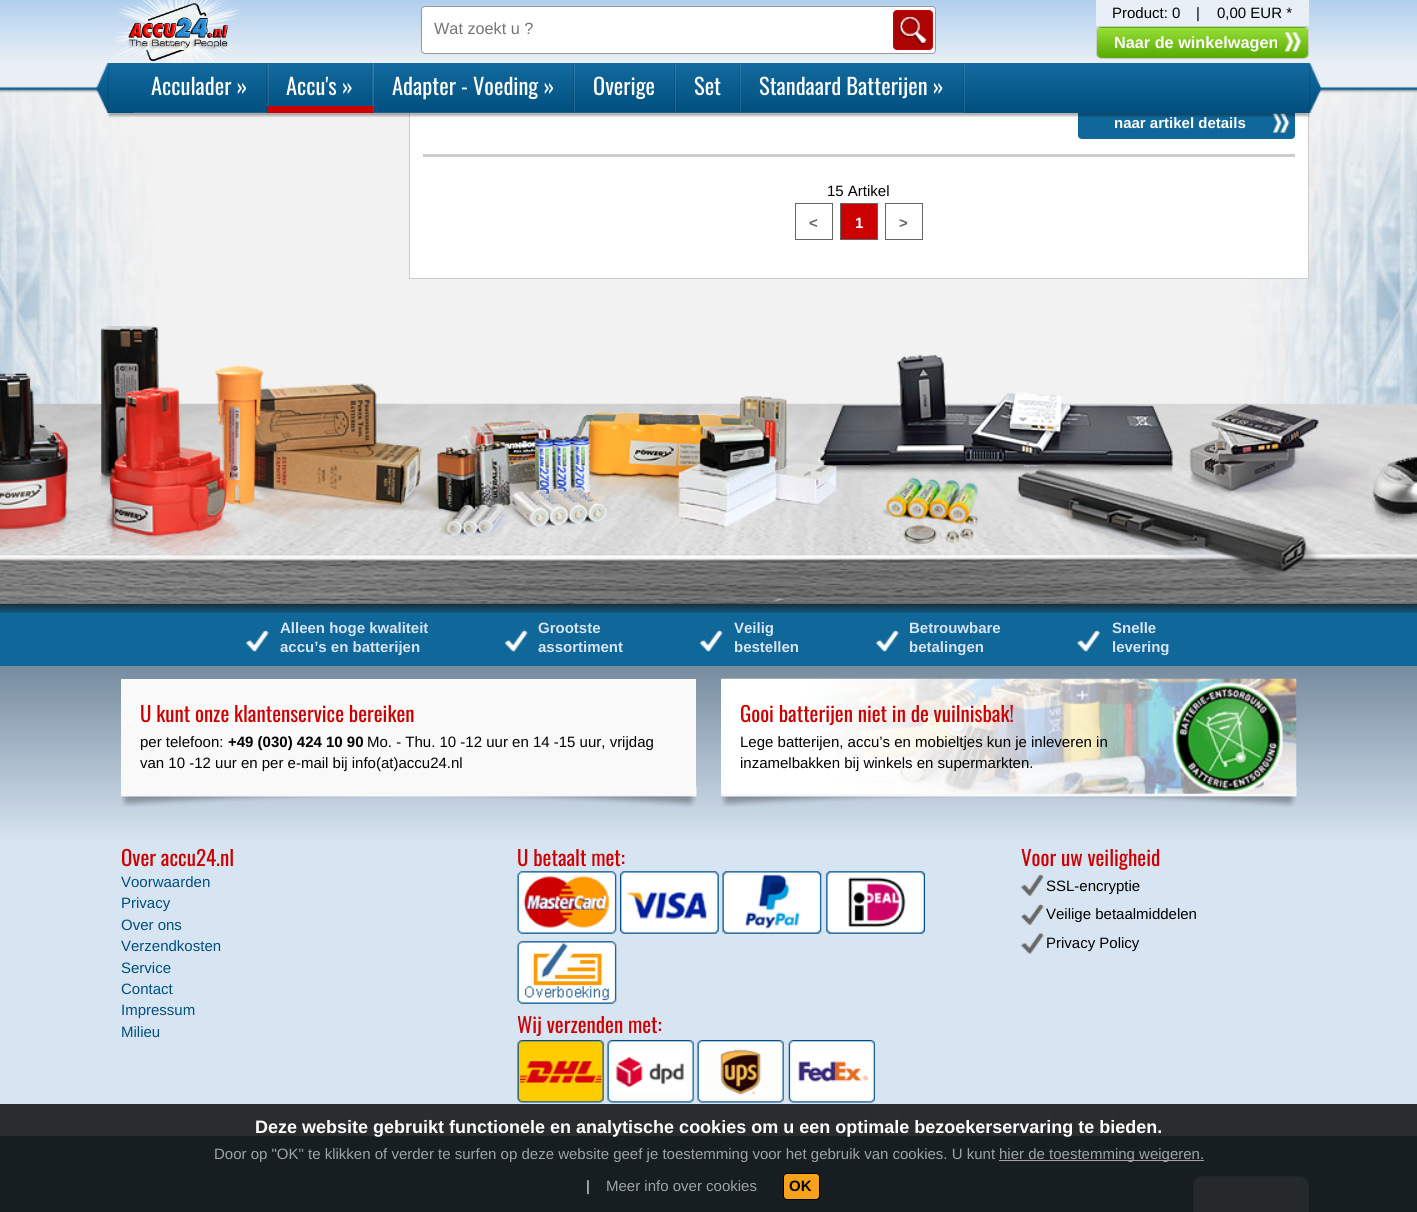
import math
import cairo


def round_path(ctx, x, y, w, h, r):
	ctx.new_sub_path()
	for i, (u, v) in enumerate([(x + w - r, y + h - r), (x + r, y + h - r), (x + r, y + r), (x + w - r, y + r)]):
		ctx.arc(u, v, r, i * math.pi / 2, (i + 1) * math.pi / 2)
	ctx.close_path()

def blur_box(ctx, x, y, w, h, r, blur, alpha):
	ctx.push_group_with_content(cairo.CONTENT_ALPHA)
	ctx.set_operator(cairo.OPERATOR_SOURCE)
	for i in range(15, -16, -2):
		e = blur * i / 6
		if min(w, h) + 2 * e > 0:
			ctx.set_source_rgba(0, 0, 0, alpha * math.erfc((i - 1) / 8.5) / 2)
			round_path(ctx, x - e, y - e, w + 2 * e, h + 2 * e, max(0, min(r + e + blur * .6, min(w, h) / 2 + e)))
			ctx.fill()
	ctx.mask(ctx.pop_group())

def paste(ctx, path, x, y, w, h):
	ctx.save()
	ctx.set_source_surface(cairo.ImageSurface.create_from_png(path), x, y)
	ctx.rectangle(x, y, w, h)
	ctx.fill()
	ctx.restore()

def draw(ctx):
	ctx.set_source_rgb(1, 1, 1)
	ctx.paint()
	paste(ctx, 'media/30.png', 0, 90, 1417, 509)
	ctx.set_source_rgb(1, 1, 1)
	ctx.rectangle(410, 113, 898, 165)
	ctx.fill()
	ctx.rectangle(409.5, -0.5, 899, 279)
	ctx.set_source_rgb(0.8, 0.8, 0.8)
	ctx.set_line_width(1)
	ctx.stroke()
	gradient = cairo.LinearGradient(709, 0, 709, 63)
	gradient.add_color_stop_rgba(0, 0.69, 0.812, 0.933, 1)
	gradient.add_color_stop_rgba(1, 0.914, 0.937, 0.961, 1)
	ctx.set_source(gradient)
	ctx.rectangle(0, 0, 1417, 63)
	ctx.fill()
	paste(ctx, 'media/1.png', 115, 0, 125, 63)
	ctx.set_source_rgb(1, 1, 1)
	round_path(ctx, 421.5, 6.5, 514, 47, 3.5)
	ctx.fill_preserve()
	ctx.set_source_rgb(0.6, 0.6, 0.6)
	ctx.stroke()
	ctx.select_font_face('Liberation Sans')
	ctx.set_font_size(16.25)
	ctx.set_source_rgb(0.459, 0.459, 0.459)
	ctx.move_to(434, 34)
	ctx.show_text('Wat zoekt u ?')
	ctx.set_source_rgb(0.675, 0.012, 0.012)
	round_path(ctx, 893.5, 10.5, 39, 39, 3.5)
	ctx.fill_preserve()
	ctx.set_source_rgb(0.8, 0, 0)
	ctx.stroke()
	paste(ctx, 'media/2.png', 898, 17, 29, 29)
	ctx.set_source_rgb(0.914, 0.937, 0.961)
	ctx.rectangle(1096, 0, 213, 26)
	ctx.fill()
	ctx.set_font_size(15)
	ctx.set_source_rgb(0, 0, 0)
	for x, y, s in [
		(1112, 18, 'Product: 0'),
		(1196, 18, '|'),
		(1217, 18, '0,00 EUR *'),
	]:
		ctx.move_to(x, y)
		ctx.show_text(s)
	ctx.save()
	round_path(ctx, 1096, 26, 213, 33, 6)
	ctx.clip()
	gradient = cairo.LinearGradient(1203, -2.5, 1203, 28)
	gradient.add_color_stop_rgba(0, 0.596, 0.878, 0.227, 1)
	gradient.add_color_stop_rgba(1, 0.345, 0.667, 0, 1)
	ctx.set_source(gradient)
	ctx.rectangle(1096, 26, 213, 2)
	ctx.fill()
	gradient = cairo.LinearGradient(1203, 27, 1203, 58)
	gradient.add_color_stop_rgba(0, 0.596, 0.878, 0.227, 1)
	gradient.add_color_stop_rgba(1, 0.345, 0.667, 0, 1)
	ctx.set_source(gradient)
	ctx.rectangle(1096, 28, 213, 30)
	ctx.fill()
	ctx.restore()
	round_path(ctx, 1096.5, 26.5, 212, 32, 5.5)
	ctx.set_source_rgb(0.8, 0.8, 0.8)
	ctx.stroke()
	paste(ctx, 'media/3.png', 1284, 32, 18, 20)
	ctx.select_font_face('Liberation Sans', cairo.FONT_SLANT_NORMAL, cairo.FONT_WEIGHT_BOLD)
	ctx.set_font_size(16.25)
	ctx.set_source_rgb(1, 1, 1)
	ctx.move_to(1114, 48)
	ctx.show_text('Naar de winkelwagen')
	paste(ctx, 'media/4.png', 0, 63, 1417, 30)
	paste(ctx, 'media/5.png', 96, 63, 13, 50)
	paste(ctx, 'media/6.png', 1309, 63, 12, 50)
	ctx.set_source_rgb(0.914, 0.937, 0.961)
	ctx.rectangle(1078, 135, 217, 4)
	ctx.fill()
	ctx.set_source_rgb(0.063, 0.404, 0.604)
	round_path(ctx, 1078, 109, 217, 30, 4)
	ctx.fill()
	paste(ctx, 'media/8.png', 1273, 113, 17, 20)
	ctx.set_source_rgb(0, 0, 0)
	blur_box(ctx, 109, 66, 1200, 50, 0, 1, 0.3)
	gradient = cairo.LinearGradient(709, 62, 709, 113)
	gradient.add_color_stop_rgba(0, 0.075, 0.42, 0.624, 1)
	gradient.add_color_stop_rgba(1, 0, 0.31, 0.494, 1)
	ctx.set_source(gradient)
	ctx.rectangle(109, 63, 1200, 50)
	ctx.fill()
	ctx.set_source_rgba(1, 1, 1, 0.11)
	ctx.new_path()
	ctx.move_to(134, 112)
	ctx.line_to(134, 113)
	ctx.line_to(269, 113)
	ctx.line_to(269, 63)
	ctx.line_to(268, 63)
	ctx.line_to(268, 112)
	ctx.close_path()
	ctx.fill()
	ctx.set_source_rgba(0, 0, 0, 0.1)
	ctx.rectangle(266, 63, 1, 50)
	ctx.fill()
	ctx.select_font_face('Oswald')
	ctx.set_font_size(22.5)
	ctx.set_source_rgb(1, 1, 1)
	ctx.move_to(151, 95)
	ctx.show_text('Acculader »')
	ctx.set_source_rgba(1, 1, 1, 0.11)
	ctx.new_path()
	ctx.move_to(269, 112)
	ctx.line_to(269, 113)
	ctx.line_to(374, 113)
	ctx.line_to(374, 63)
	ctx.line_to(372, 63)
	ctx.line_to(372, 112)
	ctx.close_path()
	ctx.fill()
	ctx.set_source_rgb(0.8, 0, 0)
	ctx.rectangle(267, 106, 106, 7)
	ctx.fill()
	ctx.set_source_rgba(0, 0, 0, 0.1)
	ctx.rectangle(371, 63, 1, 50)
	ctx.fill()
	ctx.set_source_rgb(1, 1, 1)
	ctx.move_to(286, 95)
	ctx.show_text('Accu\'s »')
	ctx.set_source_rgba(1, 1, 1, 0.11)
	ctx.new_path()
	ctx.move_to(374, 112)
	ctx.line_to(374, 113)
	ctx.line_to(575, 113)
	ctx.line_to(575, 63)
	ctx.line_to(574, 63)
	ctx.line_to(574, 112)
	ctx.close_path()
	ctx.fill()
	ctx.set_source_rgba(0, 0, 0, 0.1)
	ctx.rectangle(573, 63, 1, 50)
	ctx.fill()
	ctx.set_source_rgb(1, 1, 1)
	ctx.move_to(392, 95)
	ctx.show_text('Adapter - Voeding »')
	ctx.set_source_rgba(1, 1, 1, 0.11)
	ctx.new_path()
	ctx.move_to(575, 112)
	ctx.line_to(575, 113)
	ctx.line_to(676, 113)
	ctx.line_to(676, 63)
	ctx.line_to(675, 63)
	ctx.line_to(675, 112)
	ctx.close_path()
	ctx.fill()
	ctx.set_source_rgba(0, 0, 0, 0.1)
	ctx.rectangle(674, 63, 1, 50)
	ctx.fill()
	ctx.set_source_rgb(1, 1, 1)
	ctx.move_to(593, 95)
	ctx.show_text('Overige')
	ctx.set_source_rgba(1, 1, 1, 0.11)
	ctx.new_path()
	ctx.move_to(676, 112)
	ctx.line_to(676, 113)
	ctx.line_to(741, 113)
	ctx.line_to(741, 63)
	ctx.line_to(740, 63)
	ctx.line_to(740, 112)
	ctx.close_path()
	ctx.fill()
	ctx.set_source_rgba(0, 0, 0, 0.1)
	ctx.rectangle(739, 63, 1, 50)
	ctx.fill()
	ctx.set_source_rgb(1, 1, 1)
	ctx.move_to(694, 95)
	ctx.show_text('Set')
	ctx.set_source_rgba(1, 1, 1, 0.11)
	ctx.new_path()
	ctx.move_to(741, 112)
	ctx.line_to(741, 113)
	ctx.line_to(965, 113)
	ctx.line_to(965, 63)
	ctx.line_to(964, 63)
	ctx.line_to(964, 112)
	ctx.close_path()
	ctx.fill()
	ctx.set_source_rgba(0, 0, 0, 0.1)
	ctx.rectangle(963, 63, 1, 50)
	ctx.fill()
	ctx.set_source_rgb(1, 1, 1)
	ctx.move_to(759, 95)
	ctx.show_text('Standaard Batterijen »')
	paste(ctx, 'media/7.png', 0, 326, 1417, 287)
	ctx.set_source_rgb(0.8, 0.8, 0.8)
	ctx.rectangle(423, 154, 872, 3)
	ctx.fill()
	ctx.select_font_face('Liberation Sans', cairo.FONT_SLANT_NORMAL, cairo.FONT_WEIGHT_BOLD)
	ctx.set_font_size(15)
	ctx.set_source_rgb(1, 1, 1)
	ctx.move_to(1114, 128)
	ctx.show_text('naar artikel details')
	ctx.select_font_face('Liberation Sans')
	ctx.set_source_rgb(0, 0, 0)
	ctx.move_to(827, 196)
	ctx.show_text('15 Artikel')
	ctx.rectangle(795.5, 203.5, 37, 36)
	ctx.set_source_rgb(0.4, 0.4, 0.4)
	ctx.stroke()
	ctx.select_font_face('Liberation Sans', cairo.FONT_SLANT_NORMAL, cairo.FONT_WEIGHT_BOLD)
	ctx.move_to(809, 228)
	ctx.show_text('<')
	ctx.set_source_rgb(0.8, 0, 0)
	ctx.rectangle(840.5, 203.5, 37, 36)
	ctx.fill_preserve()
	ctx.set_source_rgb(0.4, 0.4, 0.4)
	ctx.stroke()
	ctx.set_source_rgb(1, 1, 1)
	ctx.move_to(855, 228)
	ctx.show_text('1')
	ctx.rectangle(885.5, 203.5, 37, 36)
	ctx.set_source_rgb(0.4, 0.4, 0.4)
	ctx.stroke()
	ctx.move_to(899, 228)
	ctx.show_text('>')
	gradient = cairo.LinearGradient(709, 612, 709, 841)
	gradient.add_color_stop_rgba(0, 0.345, 0.439, 0.522, 1)
	gradient.add_color_stop_rgba(1, 0.843, 0.894, 0.945, 1)
	ctx.set_source(gradient)
	ctx.rectangle(0, 666, 1417, 175)
	ctx.fill()
	ctx.set_source_rgb(0.063, 0.404, 0.604)
	ctx.rectangle(0, 613, 1417, 53)
	ctx.fill()
	paste(ctx, 'media/9.png', 246, 630, 23, 22)
	ctx.set_source_rgb(0.843, 0.894, 0.945)
	ctx.move_to(280, 633)
	ctx.show_text('Alleen hoge kwaliteit')
	ctx.move_to(280, 652)
	ctx.show_text('accu’s en batterijen')
	paste(ctx, 'media/10.png', 504, 629, 24, 23)
	ctx.move_to(538, 633)
	ctx.show_text('Grootste')
	ctx.move_to(538, 652)
	ctx.show_text('assortiment')
	paste(ctx, 'media/10.png', 699, 629, 24, 23)
	ctx.move_to(734, 633)
	ctx.show_text('Veilig')
	ctx.move_to(734, 652)
	ctx.show_text('bestellen')
	paste(ctx, 'media/11.png', 876, 630, 23, 22)
	ctx.move_to(909, 633)
	ctx.show_text('Betrouwbare')
	ctx.move_to(909, 652)
	ctx.show_text('betalingen')
	paste(ctx, 'media/12.png', 1077, 630, 24, 22)
	ctx.move_to(1112, 633)
	ctx.show_text('Snelle')
	ctx.move_to(1112, 652)
	ctx.show_text('levering')
	paste(ctx, 'media/13.png', 121, 786, 576, 21)
	paste(ctx, 'media/14.png', 121, 786, 576, 21)
	ctx.set_source_rgb(0.973, 0.973, 0.973)
	ctx.rectangle(121, 679, 575, 115)
	ctx.fill()
	ctx.select_font_face('Oswald')
	ctx.set_font_size(21)
	ctx.set_source_rgb(0.8, 0, 0)
	ctx.move_to(140, 722)
	ctx.show_text('U kunt onze klantenservice bereiken')
	ctx.select_font_face('Liberation Sans')
	ctx.set_font_size(15)
	ctx.set_source_rgb(0, 0, 0)
	ctx.move_to(140, 747)
	ctx.show_text('per telefoon:')
	ctx.select_font_face('Liberation Sans', cairo.FONT_SLANT_NORMAL, cairo.FONT_WEIGHT_BOLD)
	ctx.move_to(228, 747)
	ctx.show_text('+49 (030) 424 10 90')
	ctx.select_font_face('Liberation Sans')
	ctx.move_to(367, 747)
	ctx.show_text('Mo. - Thu. 10 -12 uur en 14 -15 uur, vrijdag')
	ctx.move_to(140, 768)
	ctx.show_text('van 10 -12 uur en per e-mail bij info(at)accu24.nl')
	paste(ctx, 'media/15.png', 721, 786, 576, 21)
	paste(ctx, 'media/16.png', 721, 786, 576, 21)
	ctx.set_source_rgb(0.973, 0.973, 0.973)
	ctx.rectangle(721, 679, 575, 115)
	ctx.fill()
	paste(ctx, 'media/17.png', 721, 678, 576, 116)
	ctx.select_font_face('Oswald')
	ctx.set_font_size(21)
	ctx.set_source_rgb(0.8, 0, 0)
	ctx.move_to(740, 722)
	ctx.show_text('Gooi batterijen niet in de vuilnisbak!')
	ctx.select_font_face('Liberation Sans')
	ctx.set_font_size(15)
	ctx.set_source_rgb(0, 0, 0)
	ctx.move_to(740, 747)
	ctx.show_text('Lege batterijen, accu’s en mobieltjes kun je inleveren in')
	ctx.move_to(740, 768)
	ctx.show_text('inzamelbakken bij winkels en supermarkten.')
	ctx.set_source_rgb(0.843, 0.894, 0.945)
	ctx.rectangle(0, 841, 1417, 295)
	ctx.fill()
	ctx.select_font_face('Oswald')
	ctx.set_font_size(21)
	ctx.set_source_rgb(0.8, 0, 0)
	ctx.move_to(121, 866)
	ctx.show_text('Over accu24.nl')
	ctx.select_font_face('Liberation Sans')
	ctx.set_font_size(15)
	ctx.set_source_rgb(0, 0.31, 0.494)
	for x, y, s in [
		(121, 887, 'Voorwaarden'),
		(121, 908, 'Privacy'),
		(121, 930, 'Over ons'),
		(121, 951, 'Verzendkosten'),
		(121, 973, 'Service'),
		(121, 994, 'Contact'),
		(121, 1015, 'Impressum'),
		(121, 1037, 'Milieu'),
	]:
		ctx.move_to(x, y)
		ctx.show_text(s)
	ctx.select_font_face('Oswald')
	ctx.set_font_size(21)
	ctx.set_source_rgb(0.8, 0, 0)
	ctx.move_to(517, 866)
	ctx.show_text('U betaalt met:')
	paste(ctx, 'media/18.png', 517, 871, 100, 63)
	paste(ctx, 'media/19.png', 620, 871, 99, 63)
	paste(ctx, 'media/20.png', 722, 871, 100, 63)
	paste(ctx, 'media/21.png', 826, 871, 99, 63)
	paste(ctx, 'media/22.png', 517, 941, 100, 63)
	ctx.move_to(517, 1033)
	ctx.show_text('Wij verzenden met:')
	paste(ctx, 'media/23.png', 517, 1040, 87, 63)
	paste(ctx, 'media/24.png', 607, 1040, 87, 63)
	paste(ctx, 'media/25.png', 697, 1040, 87, 63)
	paste(ctx, 'media/26.png', 788, 1040, 87, 63)
	ctx.move_to(1021, 866)
	ctx.show_text('Voor uw veiligheid')
	paste(ctx, 'media/27.png', 1021, 874, 23, 23)
	ctx.select_font_face('Liberation Sans')
	ctx.set_font_size(15)
	ctx.set_source_rgb(0, 0, 0)
	ctx.move_to(1046, 891)
	ctx.show_text('SSL-encryptie')
	paste(ctx, 'media/28.png', 1021, 903, 23, 22)
	ctx.move_to(1046, 919)
	ctx.show_text('Veilige betaalmiddelen')
	paste(ctx, 'media/29.png', 1021, 932, 23, 22)
	ctx.move_to(1046, 948)
	ctx.show_text('Privacy Policy')
	ctx.set_source_rgb(0, 0.31, 0.494)
	ctx.rectangle(0, 1136, 1417, 76)
	ctx.fill()
	ctx.set_source_rgb(0.635, 0.757, 0.855)
	ctx.new_path()
	ctx.move_to(1202, 1176.5)
	ctx.line_to(1300, 1176.5)
	ctx.curve_to(1304.5, 1176.5, 1308.5, 1180.5, 1308.5, 1185)
	ctx.line_to(1308.5, 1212.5)
	ctx.line_to(1193.5, 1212.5)
	ctx.line_to(1193.5, 1185)
	ctx.curve_to(1193.5, 1180.5, 1197.5, 1176.5, 1202, 1176.5)
	ctx.close_path()
	ctx.fill_preserve()
	ctx.set_source_rgb(0.478, 0.541, 0.58)
	ctx.stroke()
	ctx.set_source_rgba(0.098, 0.098, 0.098, 0.9)
	ctx.rectangle(0, 1104, 1417, 108)
	ctx.fill()
	ctx.select_font_face('Liberation Sans', cairo.FONT_SLANT_NORMAL, cairo.FONT_WEIGHT_BOLD)
	ctx.set_font_size(18)
	ctx.set_source_rgb(1, 1, 1)
	ctx.move_to(255, 1133)
	ctx.show_text('Deze website gebruikt functionele en analytische cookies om u een optimale bezoekerservaring te bieden.')
	ctx.select_font_face('Liberation Sans')
	ctx.set_font_size(15)
	ctx.set_source_rgb(0.635, 0.635, 0.635)
	ctx.move_to(214, 1159)
	ctx.show_text('Door op "OK" te klikken of verder te surfen op deze website geef je toestemming voor het gebruik van cookies. U kunt')
	ctx.rectangle(999, 1160, 205, 1)
	ctx.fill()
	ctx.move_to(999, 1159)
	ctx.show_text('hier de toestemming weigeren.')
	ctx.set_source_rgb(0.937, 0.937, 0.937)
	ctx.move_to(586, 1191)
	ctx.show_text('|')
	ctx.set_source_rgb(0.635, 0.635, 0.635)
	ctx.move_to(606, 1191)
	ctx.show_text('Meer info over cookies')
	ctx.set_source_rgb(0.965, 0.635, 0.114)
	round_path(ctx, 783.5, 1173.5, 36, 26, 3.5)
	ctx.fill_preserve()
	ctx.set_source_rgb(0, 0, 0)
	ctx.stroke()
	ctx.select_font_face('Liberation Sans', cairo.FONT_SLANT_NORMAL, cairo.FONT_WEIGHT_BOLD)
	ctx.move_to(789, 1191)
	ctx.show_text('OK')


surface = cairo.ImageSurface(cairo.FORMAT_RGB24, 1417, 1212)
ctx = cairo.Context(surface)
options = cairo.FontOptions()
options.set_hint_metrics(cairo.HINT_METRICS_OFF)
options.set_hint_style(cairo.HINT_STYLE_NONE)
ctx.set_font_options(options)
ctx.set_miter_limit(4)
draw(ctx)
surface.write_to_png('image.png')
